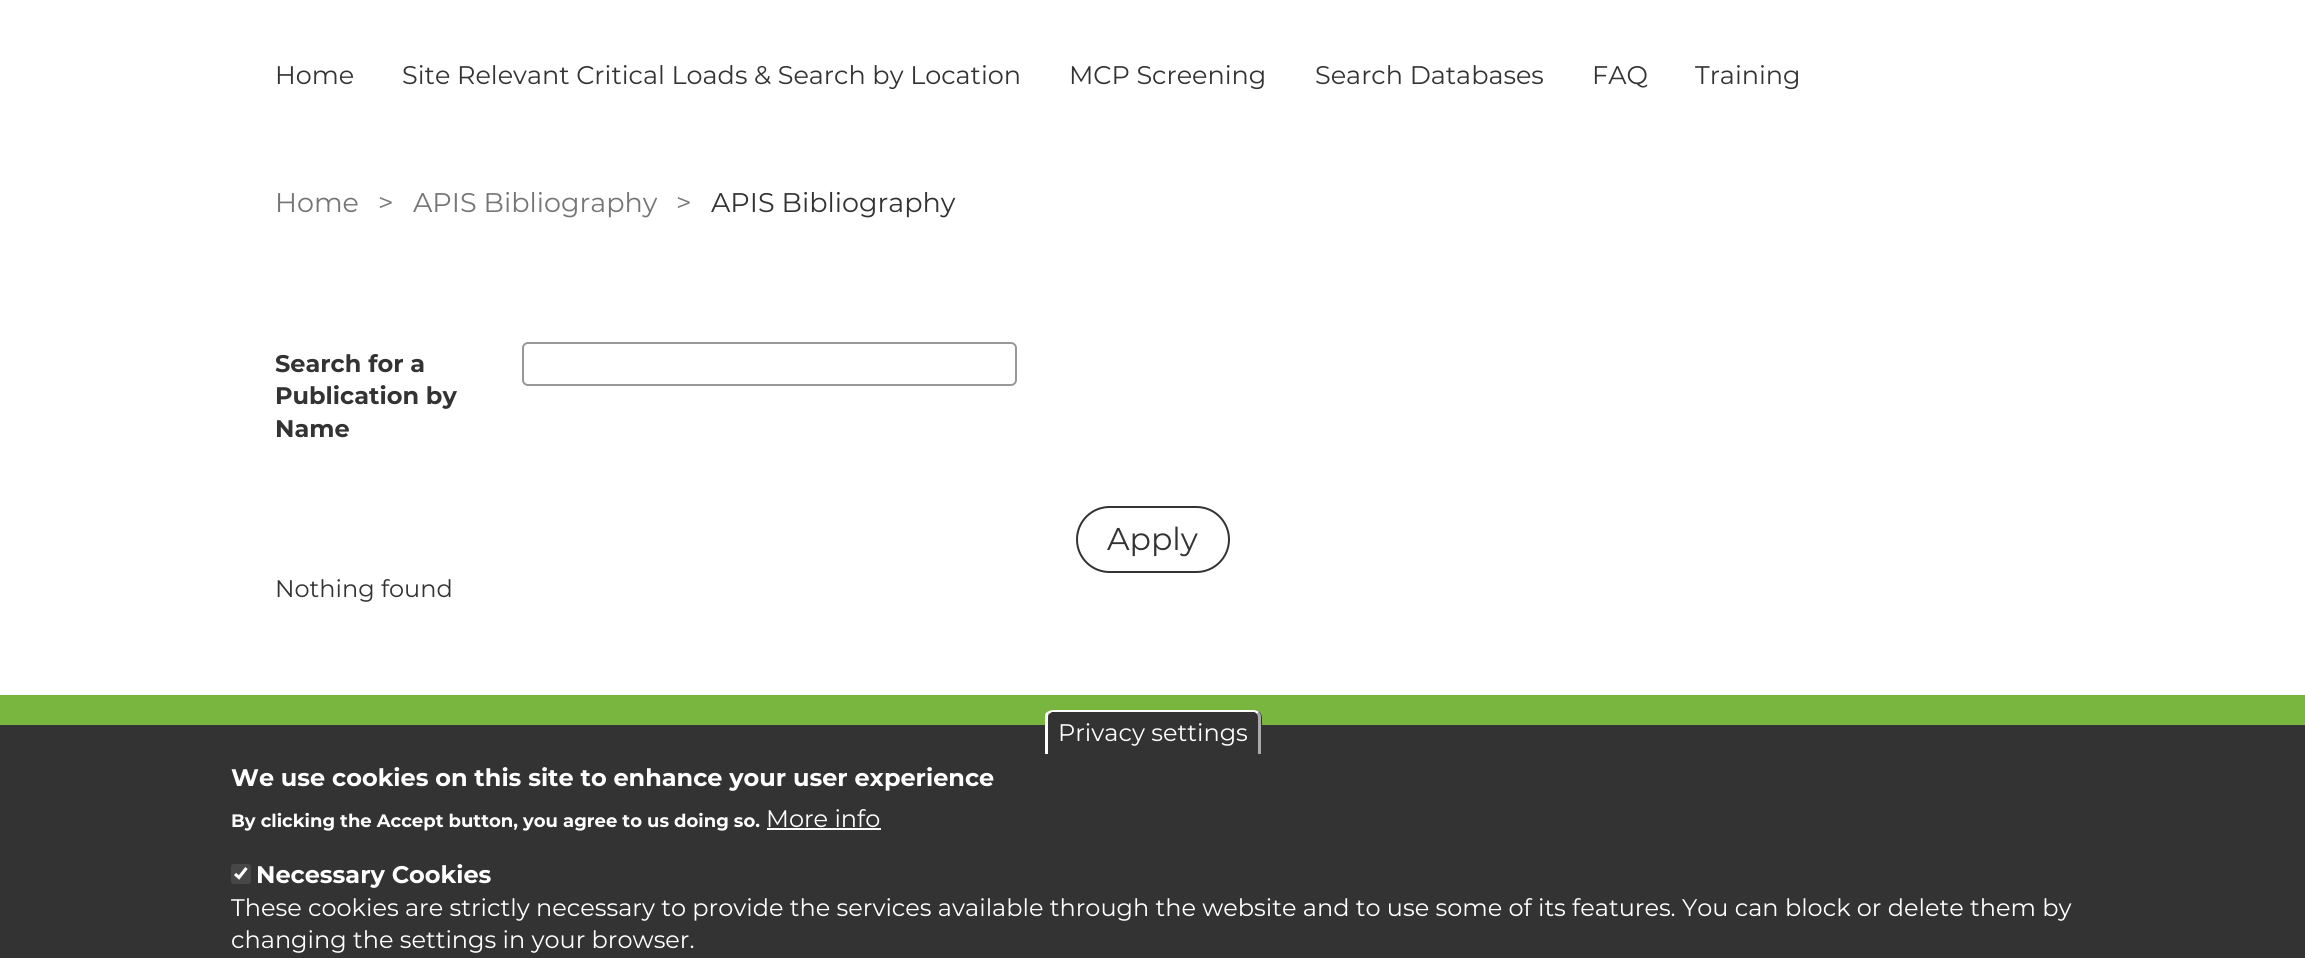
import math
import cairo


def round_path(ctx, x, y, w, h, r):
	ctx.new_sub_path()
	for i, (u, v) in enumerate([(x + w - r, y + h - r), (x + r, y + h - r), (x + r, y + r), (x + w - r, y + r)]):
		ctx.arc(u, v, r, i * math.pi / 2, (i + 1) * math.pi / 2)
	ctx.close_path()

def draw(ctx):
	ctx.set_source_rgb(1, 1, 1)
	ctx.paint()
	ctx.select_font_face('Montserrat')
	ctx.set_font_size(25.5)
	ctx.set_source_rgb(0.2, 0.2, 0.2)
	for x, y, s in [
		(275, 84, 'Home'),
		(402, 84, 'Site Relevant Critical Loads & Search by Location'),
		(1069, 84, 'MCP Screening'),
		(1315, 84, 'Search Databases'),
		(1592, 84, 'FAQ'),
		(1695, 84, 'Training'),
	]:
		ctx.move_to(x, y)
		ctx.show_text(s)
	ctx.set_font_size(27)
	ctx.set_source_rgb(0.463, 0.463, 0.463)
	for x, y, s in [
		(275, 212, 'Home'),
		(378, 212, '>'),
		(413, 212, 'APIS Bibliography'),
		(676, 212, '>'),
	]:
		ctx.move_to(x, y)
		ctx.show_text(s)
	ctx.set_source_rgb(0.2, 0.2, 0.2)
	ctx.move_to(711, 212)
	ctx.show_text('APIS Bibliography')
	ctx.select_font_face('Montserrat', cairo.FONT_SLANT_NORMAL, cairo.FONT_WEIGHT_BOLD)
	ctx.set_font_size(24)
	for x, y, s in [
		(275, 372, 'Search for a'),
		(275, 404, 'Publication by'),
		(275, 437, 'Name'),
	]:
		ctx.move_to(x, y)
		ctx.show_text(s)
	round_path(ctx, 523, 343, 493, 42, 5)
	ctx.set_source_rgb(0.596, 0.596, 0.596)
	ctx.stroke()
	round_path(ctx, 1077, 507, 152, 65, 32.5)
	ctx.set_source_rgb(0.2, 0.2, 0.2)
	ctx.stroke()
	ctx.select_font_face('Montserrat')
	ctx.set_font_size(31.5)
	ctx.move_to(1107, 550)
	ctx.show_text('Apply')
	ctx.set_font_size(24)
	ctx.move_to(275, 597)
	ctx.show_text('Nothing found')
	ctx.rectangle(0, 725, 2305, 233)
	ctx.fill()
	ctx.set_source_rgb(0.475, 0.714, 0.251)
	ctx.rectangle(0, 695, 2305, 30)
	ctx.fill()
	ctx.set_source_rgb(0.2, 0.2, 0.2)
	ctx.new_path()
	ctx.move_to(1054, 710)
	ctx.line_to(1254, 710)
	ctx.curve_to(1258.5, 710, 1262, 713.5, 1262, 718)
	ctx.line_to(1262, 755)
	ctx.line_to(1046, 755)
	ctx.line_to(1046, 718)
	ctx.curve_to(1046, 713.5, 1049.5, 710, 1054, 710)
	ctx.close_path()
	ctx.fill()
	ctx.set_source_rgb(1, 1, 1)
	ctx.new_path()
	ctx.move_to(1053, 710)
	ctx.line_to(1254, 710)
	ctx.curve_to(1256, 710, 1258, 711, 1259, 712)
	ctx.line_to(1257, 714)
	ctx.curve_to(1256, 713, 1255, 712, 1254, 712)
	ctx.line_to(1052, 712)
	ctx.line_to(1049, 714)
	ctx.line_to(1047, 712)
	ctx.curve_to(1049, 711, 1051, 710, 1053, 710)
	ctx.close_path()
	ctx.fill()
	ctx.set_source_rgb(0.667, 0.667, 0.667)
	ctx.new_path()
	ctx.move_to(1257, 714)
	ctx.line_to(1258, 717)
	ctx.line_to(1258, 754)
	ctx.line_to(1261, 754)
	ctx.line_to(1261, 717)
	ctx.curve_to(1261, 715, 1260, 713, 1259, 712)
	ctx.close_path()
	ctx.fill()
	ctx.set_source_rgb(1, 1, 1)
	ctx.new_path()
	ctx.move_to(1047, 712)
	ctx.line_to(1049, 714)
	ctx.curve_to(1048, 715, 1048, 716, 1048, 717)
	ctx.line_to(1048, 754)
	ctx.line_to(1045, 754)
	ctx.line_to(1045, 716)
	ctx.curve_to(1045, 714, 1046, 713, 1047, 712)
	ctx.close_path()
	ctx.fill()
	ctx.move_to(1058, 741)
	ctx.show_text('Privacy settings')
	ctx.select_font_face('Montserrat', cairo.FONT_SLANT_NORMAL, cairo.FONT_WEIGHT_BOLD)
	ctx.move_to(231, 786)
	ctx.show_text('We use cookies on this site to enhance your user experience')
	ctx.set_font_size(18)
	ctx.move_to(231, 827)
	ctx.show_text('By clicking the Accept button, you agree to us doing so.')
	ctx.select_font_face('Montserrat')
	ctx.set_font_size(24)
	ctx.move_to(766, 827)
	ctx.show_text('More info')
	ctx.rectangle(767, 828, 114, 2)
	ctx.fill()
	ctx.set_source_rgb(0.278, 0.278, 0.278)
	round_path(ctx, 231, 864, 20, 20, 3)
	ctx.fill()
	ctx.new_path()
	ctx.move_to(235, 874)
	ctx.line_to(239, 877.5)
	ctx.line_to(246.5, 868)
	ctx.set_source_rgb(1, 1, 1)
	ctx.set_line_width(3.1)
	ctx.stroke()
	ctx.select_font_face('Montserrat', cairo.FONT_SLANT_NORMAL, cairo.FONT_WEIGHT_BOLD)
	ctx.move_to(256, 883)
	ctx.show_text('Necessary Cookies')
	ctx.select_font_face('Montserrat')
	ctx.move_to(231, 916)
	ctx.show_text('These cookies are strictly necessary to provide the services available through the website and to use some of its features. You can block or delete them by')
	ctx.move_to(231, 948)
	ctx.show_text('changing the settings in your browser.')


surface = cairo.ImageSurface(cairo.FORMAT_RGB24, 2305, 958)
ctx = cairo.Context(surface)
options = cairo.FontOptions()
options.set_hint_metrics(cairo.HINT_METRICS_OFF)
options.set_hint_style(cairo.HINT_STYLE_NONE)
ctx.set_font_options(options)
ctx.set_miter_limit(4)
draw(ctx)
surface.write_to_png('image.png')
